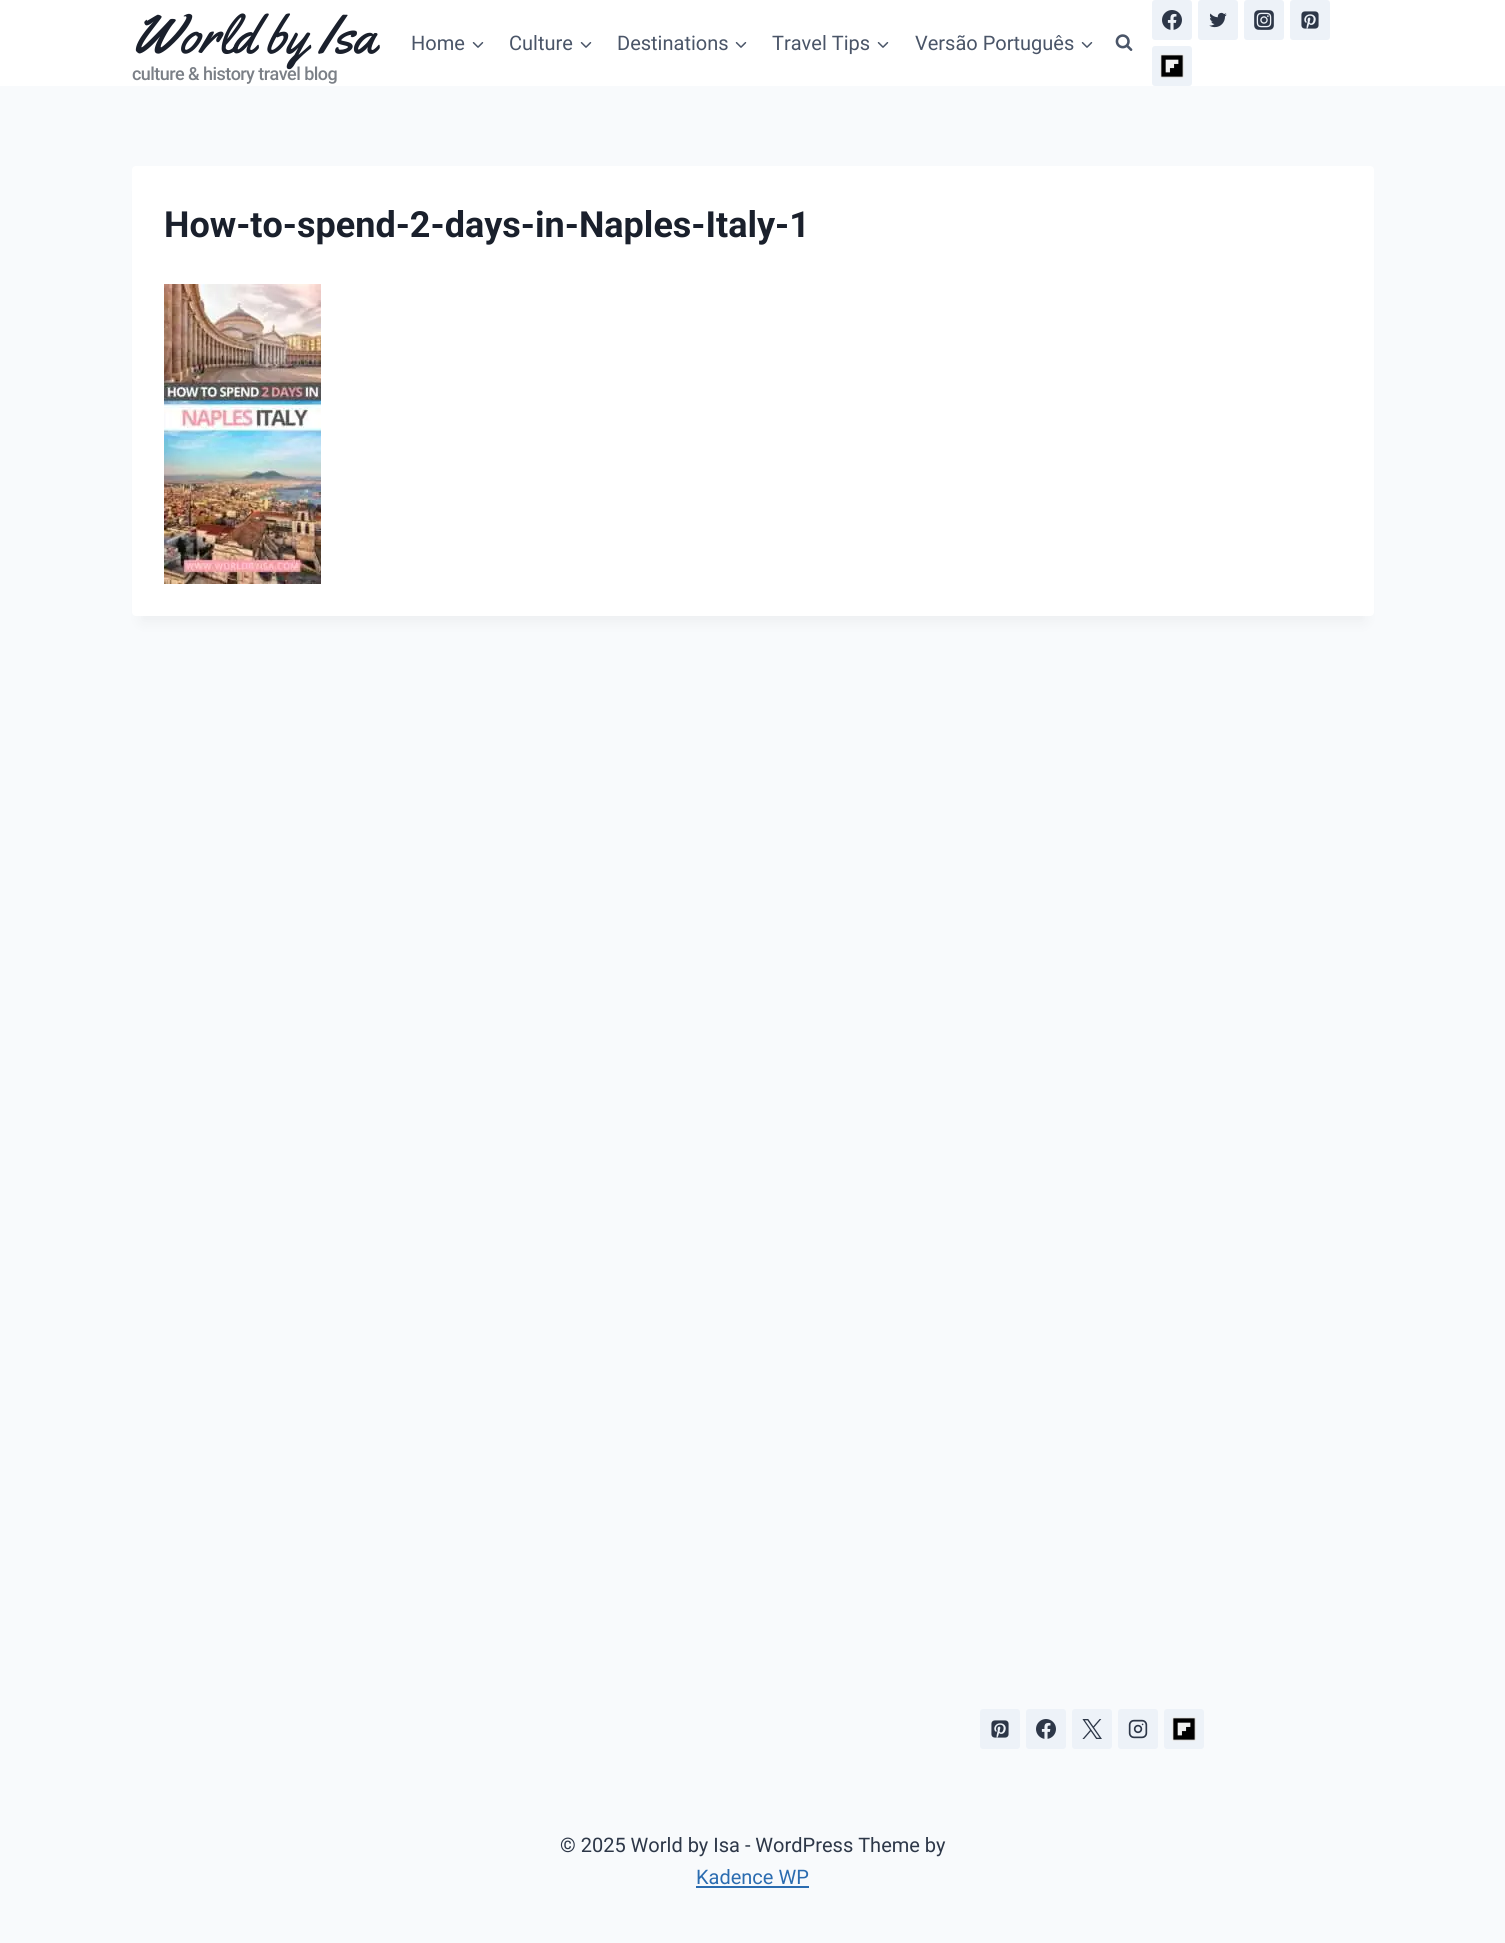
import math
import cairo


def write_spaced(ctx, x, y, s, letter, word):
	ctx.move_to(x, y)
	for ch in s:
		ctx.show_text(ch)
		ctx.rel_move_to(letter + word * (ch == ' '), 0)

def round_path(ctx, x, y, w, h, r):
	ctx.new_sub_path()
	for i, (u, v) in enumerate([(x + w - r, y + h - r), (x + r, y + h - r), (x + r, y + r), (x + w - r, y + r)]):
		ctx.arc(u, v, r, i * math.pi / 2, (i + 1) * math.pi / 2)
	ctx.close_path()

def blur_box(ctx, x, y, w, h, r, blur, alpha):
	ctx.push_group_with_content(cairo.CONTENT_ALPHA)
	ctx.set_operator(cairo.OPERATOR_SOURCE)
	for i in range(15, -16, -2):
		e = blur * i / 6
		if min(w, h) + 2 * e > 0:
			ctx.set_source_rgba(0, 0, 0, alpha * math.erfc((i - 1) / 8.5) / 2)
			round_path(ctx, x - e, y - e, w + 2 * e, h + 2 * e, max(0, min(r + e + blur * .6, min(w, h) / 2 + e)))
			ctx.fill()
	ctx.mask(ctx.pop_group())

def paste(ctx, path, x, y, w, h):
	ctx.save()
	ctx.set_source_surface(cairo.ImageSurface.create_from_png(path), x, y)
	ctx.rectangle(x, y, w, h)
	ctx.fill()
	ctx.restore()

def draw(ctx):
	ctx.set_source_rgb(0.969, 0.98, 0.988)
	ctx.paint()
	ctx.set_source_rgb(1, 1, 1)
	ctx.rectangle(0, 0, 1505, 86)
	ctx.fill()
	ctx.select_font_face('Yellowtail')
	ctx.set_font_size(54)
	ctx.set_source_rgb(0.102, 0.125, 0.173)
	ctx.move_to(132, 53)
	ctx.show_text('World by Isa')
	ctx.select_font_face('Roboto Medium')
	ctx.set_font_size(18)
	ctx.set_source_rgb(0.482, 0.502, 0.529)
	write_spaced(ctx, 132, 80, 'culture & history travel blog', -0.55, 0)
	ctx.select_font_face('Roboto')
	ctx.set_font_size(20)
	ctx.set_source_rgb(0.29, 0.333, 0.408)
	ctx.move_to(411, 50)
	ctx.show_text('Home')
	paste(ctx, 'media/1.png', 472, 42, 12, 6)
	ctx.move_to(509, 50)
	ctx.show_text('Culture')
	paste(ctx, 'media/1.png', 580, 42, 12, 6)
	ctx.move_to(617, 50)
	ctx.show_text('Destinations')
	paste(ctx, 'media/1.png', 735, 42, 12, 6)
	ctx.move_to(772, 50)
	ctx.show_text('Travel Tips')
	paste(ctx, 'media/1.png', 877, 42, 12, 6)
	ctx.move_to(915, 50)
	ctx.show_text('Versão Português')
	paste(ctx, 'media/1.png', 1081, 42, 12, 6)
	paste(ctx, 'media/2.png', 1115, 34, 18, 17)
	ctx.set_source_rgb(0.929, 0.949, 0.969)
	round_path(ctx, 1152, 0, 40, 40, 3)
	ctx.fill()
	paste(ctx, 'media/3.png', 1162, 10, 20, 20)
	round_path(ctx, 1198, 0, 40, 40, 3)
	ctx.fill()
	paste(ctx, 'media/4.png', 1209, 12, 18, 16)
	round_path(ctx, 1244, 0, 40, 40, 3)
	ctx.fill()
	paste(ctx, 'media/5.png', 1254, 10, 20, 20)
	round_path(ctx, 1290, 0, 40, 40, 3)
	ctx.fill()
	paste(ctx, 'media/6.png', 1301, 11, 18, 18)
	round_path(ctx, 1152, 46, 40, 40, 3)
	ctx.fill()
	paste(ctx, 'media/7.png', 1160, 54, 24, 24)
	ctx.set_source_rgb(0, 0, 0)
	blur_box(ctx, 142, 191, 1222, 430, 0, 7.5, 0.05)
	ctx.set_source_rgb(1, 1, 1)
	round_path(ctx, 132, 166, 1242, 450, 4)
	ctx.fill()
	ctx.select_font_face('Roboto', cairo.FONT_SLANT_NORMAL, cairo.FONT_WEIGHT_BOLD)
	ctx.set_font_size(36)
	ctx.set_source_rgb(0.102, 0.125, 0.173)
	ctx.move_to(164, 237)
	ctx.show_text('How-to-spend-2-days-in-Naples-Italy-1')
	paste(ctx, 'media/8.png', 164, 284, 157, 300)
	ctx.set_source_rgb(0.929, 0.949, 0.969)
	round_path(ctx, 980, 1709, 40, 40, 3)
	ctx.fill()
	paste(ctx, 'media/6.png', 991, 1720, 18, 18)
	round_path(ctx, 1026, 1709, 40, 40, 3)
	ctx.fill()
	paste(ctx, 'media/3.png', 1036, 1719, 20, 20)
	round_path(ctx, 1072, 1709, 40, 40, 3)
	ctx.fill()
	paste(ctx, 'media/9.png', 1082, 1719, 20, 20)
	round_path(ctx, 1118, 1709, 40, 40, 3)
	ctx.fill()
	paste(ctx, 'media/10.png', 1128, 1719, 20, 20)
	round_path(ctx, 1164, 1709, 40, 40, 3)
	ctx.fill()
	paste(ctx, 'media/7.png', 1172, 1717, 24, 24)
	ctx.select_font_face('Roboto')
	ctx.set_font_size(20)
	ctx.set_source_rgb(0.176, 0.216, 0.282)
	ctx.move_to(560, 1852)
	ctx.show_text('© 2025 World by Isa - WordPress Theme by')
	ctx.set_source_rgb(0.169, 0.424, 0.69)
	ctx.move_to(696, 1884)
	ctx.show_text('Kadence WP')
	ctx.rectangle(696, 1886, 113, 2)
	ctx.fill()


surface = cairo.ImageSurface(cairo.FORMAT_RGB24, 1505, 1943)
ctx = cairo.Context(surface)
options = cairo.FontOptions()
options.set_hint_metrics(cairo.HINT_METRICS_OFF)
options.set_hint_style(cairo.HINT_STYLE_NONE)
ctx.set_font_options(options)
ctx.set_miter_limit(4)
draw(ctx)
surface.write_to_png('image.png')
